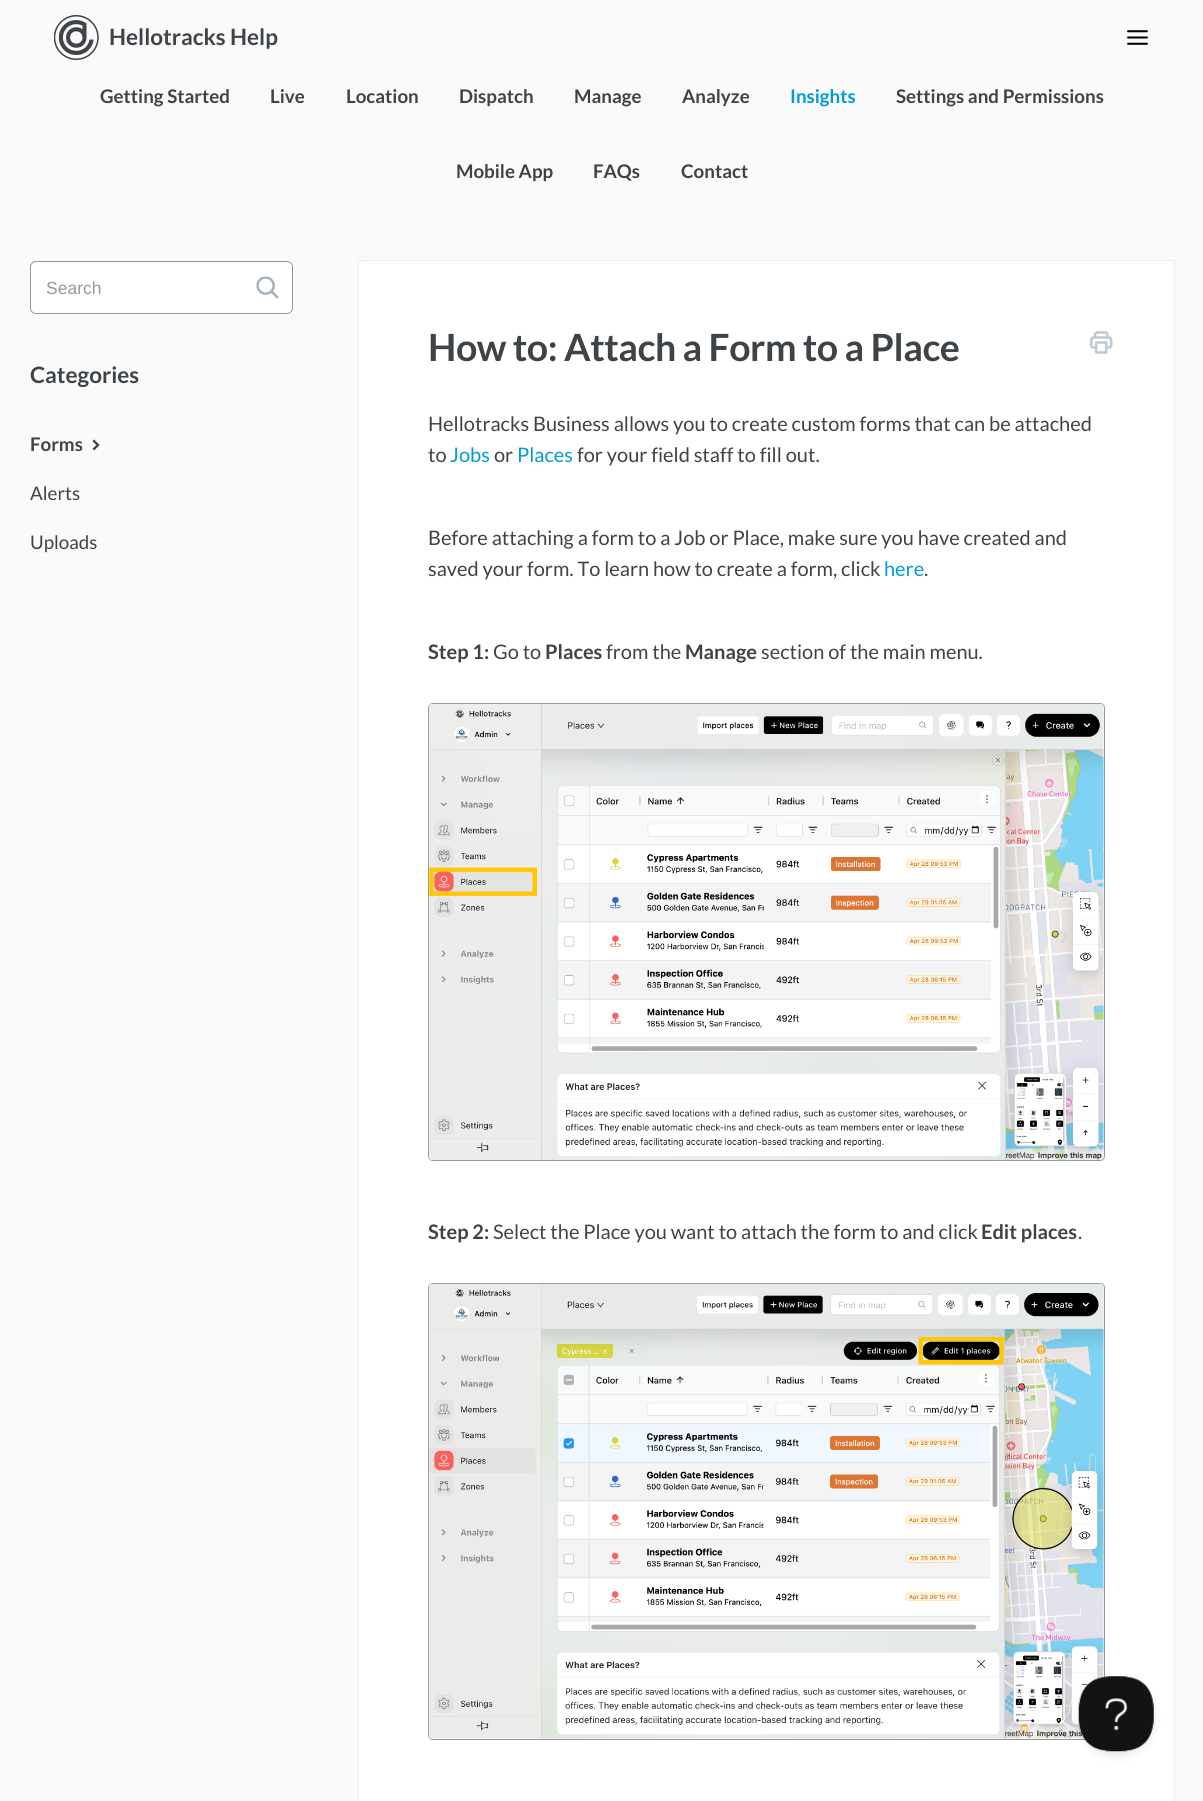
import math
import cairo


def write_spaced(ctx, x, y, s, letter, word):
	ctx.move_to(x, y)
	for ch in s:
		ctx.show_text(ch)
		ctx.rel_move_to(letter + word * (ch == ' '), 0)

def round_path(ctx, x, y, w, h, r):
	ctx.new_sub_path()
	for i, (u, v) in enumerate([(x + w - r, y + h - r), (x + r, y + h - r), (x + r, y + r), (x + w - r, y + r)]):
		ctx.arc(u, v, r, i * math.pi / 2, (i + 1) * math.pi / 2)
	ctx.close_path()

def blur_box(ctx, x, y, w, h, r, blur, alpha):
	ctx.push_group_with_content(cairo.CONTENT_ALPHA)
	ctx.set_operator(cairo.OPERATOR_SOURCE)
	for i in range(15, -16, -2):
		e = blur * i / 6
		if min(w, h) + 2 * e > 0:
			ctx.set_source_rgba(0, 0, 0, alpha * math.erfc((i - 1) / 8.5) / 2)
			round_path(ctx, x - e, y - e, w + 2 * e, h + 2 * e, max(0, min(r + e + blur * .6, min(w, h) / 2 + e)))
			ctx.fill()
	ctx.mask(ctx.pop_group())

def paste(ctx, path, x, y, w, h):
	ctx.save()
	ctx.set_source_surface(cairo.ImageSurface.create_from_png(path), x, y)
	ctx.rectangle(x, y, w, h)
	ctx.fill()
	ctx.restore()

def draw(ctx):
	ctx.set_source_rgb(0.98, 0.98, 0.98)
	ctx.paint()
	paste(ctx, 'media/1.png', 54, 15, 45, 45)
	ctx.select_font_face('Lato', cairo.FONT_SLANT_NORMAL, cairo.FONT_WEIGHT_BOLD)
	ctx.set_font_size(22.5)
	ctx.set_source_rgb(0.243, 0.263, 0.282)
	ctx.move_to(109, 45)
	ctx.show_text('Hellotracks Help')
	paste(ctx, 'media/2.png', 1127, 30, 21, 15)
	ctx.set_font_size(18.75)
	for x, y, s in [
		(100, 103, 'Getting Started'),
		(270, 103, 'Live'),
		(346, 103, 'Location'),
		(459, 103, 'Dispatch'),
		(574, 103, 'Manage'),
		(682, 103, 'Analyze'),
	]:
		ctx.move_to(x, y)
		ctx.show_text(s)
	ctx.set_source_rgb(0, 0.612, 0.843)
	ctx.move_to(790, 103)
	ctx.show_text('Insights')
	ctx.set_source_rgb(0.243, 0.263, 0.282)
	for x, y, s in [
		(896, 103, 'Settings and Permissions'),
		(456, 178, 'Mobile App'),
		(593, 178, 'FAQs'),
		(681, 178, 'Contact'),
	]:
		ctx.move_to(x, y)
		ctx.show_text(s)
	ctx.set_source_rgb(1, 1, 1)
	round_path(ctx, 30.5, 261.5, 262, 52, 5.5)
	ctx.fill_preserve()
	ctx.set_source_rgb(0.6, 0.6, 0.6)
	ctx.set_line_width(1)
	ctx.stroke()
	ctx.select_font_face('Liberation Sans')
	ctx.set_font_size(17.5)
	ctx.move_to(46, 294)
	ctx.show_text('Search')
	paste(ctx, 'media/3.png', 256, 276, 23, 23)
	ctx.select_font_face('Lato', cairo.FONT_SLANT_NORMAL, cairo.FONT_WEIGHT_BOLD)
	ctx.set_font_size(22.5)
	ctx.set_source_rgb(0.243, 0.263, 0.282)
	ctx.move_to(30, 383)
	ctx.show_text('Categories')
	ctx.set_font_size(18.75)
	ctx.move_to(30, 451)
	ctx.show_text('Forms')
	paste(ctx, 'media/4.png', 92, 439, 8, 12)
	ctx.select_font_face('Lato')
	ctx.move_to(30, 500)
	ctx.show_text('Alerts')
	ctx.move_to(30, 549)
	ctx.show_text('Uploads')
	ctx.rectangle(358.5, 260.5, 816, 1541)
	ctx.set_source_rgba(0, 0, 0, 0.05)
	ctx.stroke()
	ctx.set_source_rgb(1, 1, 1)
	round_path(ctx, 359, 261, 815, 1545, 5)
	ctx.fill()
	ctx.select_font_face('Lato', cairo.FONT_SLANT_NORMAL, cairo.FONT_WEIGHT_BOLD)
	ctx.set_font_size(37.5)
	ctx.set_source_rgb(0.243, 0.263, 0.282)
	write_spaced(ctx, 428, 361, 'How to: Attach a Form to a Place', -0.45, 0)
	paste(ctx, 'media/5.png', 1090, 331, 23, 23)
	ctx.select_font_face('Lato')
	ctx.set_font_size(20)
	ctx.move_to(428, 431)
	ctx.show_text('Hellotracks Business allows you to create custom forms that can be attached')
	ctx.move_to(428, 462)
	ctx.show_text('to')
	ctx.set_source_rgb(0, 0.612, 0.843)
	ctx.move_to(450, 462)
	ctx.show_text('Jobs')
	ctx.set_source_rgb(0.243, 0.263, 0.282)
	ctx.move_to(494, 462)
	ctx.show_text('or')
	ctx.set_source_rgb(0, 0.612, 0.843)
	ctx.move_to(517, 462)
	ctx.show_text('Places')
	ctx.set_source_rgb(0.243, 0.263, 0.282)
	for x, y, s in [
		(577, 462, 'for your field staff to fill out.'),
		(428, 545, 'Before attaching a form to a Job or Place, make sure you have created and'),
		(428, 576, 'saved your form. To learn how to create a form, click'),
	]:
		ctx.move_to(x, y)
		ctx.show_text(s)
	ctx.set_source_rgb(0, 0.612, 0.843)
	ctx.move_to(884, 576)
	ctx.show_text('here')
	ctx.set_source_rgb(0.243, 0.263, 0.282)
	ctx.move_to(924, 576)
	ctx.show_text('.')
	ctx.select_font_face('Lato', cairo.FONT_SLANT_NORMAL, cairo.FONT_WEIGHT_BOLD)
	ctx.move_to(428, 659)
	ctx.show_text('Step 1:')
	ctx.select_font_face('Lato')
	ctx.move_to(493, 659)
	ctx.show_text('Go to')
	ctx.select_font_face('Lato', cairo.FONT_SLANT_NORMAL, cairo.FONT_WEIGHT_BOLD)
	ctx.move_to(545, 659)
	ctx.show_text('Places')
	ctx.select_font_face('Lato')
	ctx.move_to(606, 659)
	ctx.show_text('from the')
	ctx.select_font_face('Lato', cairo.FONT_SLANT_NORMAL, cairo.FONT_WEIGHT_BOLD)
	ctx.move_to(685, 659)
	ctx.show_text('Manage')
	ctx.select_font_face('Lato')
	ctx.move_to(761, 659)
	ctx.show_text('section of the main menu.')
	round_path(ctx, 428.5, 703.5, 676, 457, 4.5)
	ctx.set_source_rgb(0.6, 0.6, 0.6)
	ctx.stroke()
	paste(ctx, 'media/6.png', 428, 703, 676, 457)
	ctx.select_font_face('Lato', cairo.FONT_SLANT_NORMAL, cairo.FONT_WEIGHT_BOLD)
	ctx.set_source_rgb(0.243, 0.263, 0.282)
	ctx.move_to(428, 1239)
	ctx.show_text('Step 2:')
	ctx.select_font_face('Lato')
	ctx.move_to(493, 1239)
	ctx.show_text('Select the Place you want to attach the form to and click')
	ctx.select_font_face('Lato', cairo.FONT_SLANT_NORMAL, cairo.FONT_WEIGHT_BOLD)
	ctx.move_to(981, 1239)
	ctx.show_text('Edit places')
	ctx.select_font_face('Lato')
	ctx.move_to(1078, 1239)
	ctx.show_text('.')
	round_path(ctx, 428.5, 1283.5, 676, 456, 4.5)
	ctx.set_source_rgb(0.6, 0.6, 0.6)
	ctx.stroke()
	paste(ctx, 'media/7.png', 428, 1283, 676, 456)
	ctx.set_source_rgb(0, 0, 0)
	blur_box(ctx, 1079, 1681, 75, 75, 37.5, 4.5, 0.1)
	paste(ctx, 'media/8.png', 1078, 1676, 76, 76)


surface = cairo.ImageSurface(cairo.FORMAT_RGB24, 1203, 1801)
ctx = cairo.Context(surface)
options = cairo.FontOptions()
options.set_hint_metrics(cairo.HINT_METRICS_OFF)
options.set_hint_style(cairo.HINT_STYLE_NONE)
ctx.set_font_options(options)
ctx.set_miter_limit(4)
draw(ctx)
surface.write_to_png('image.png')
